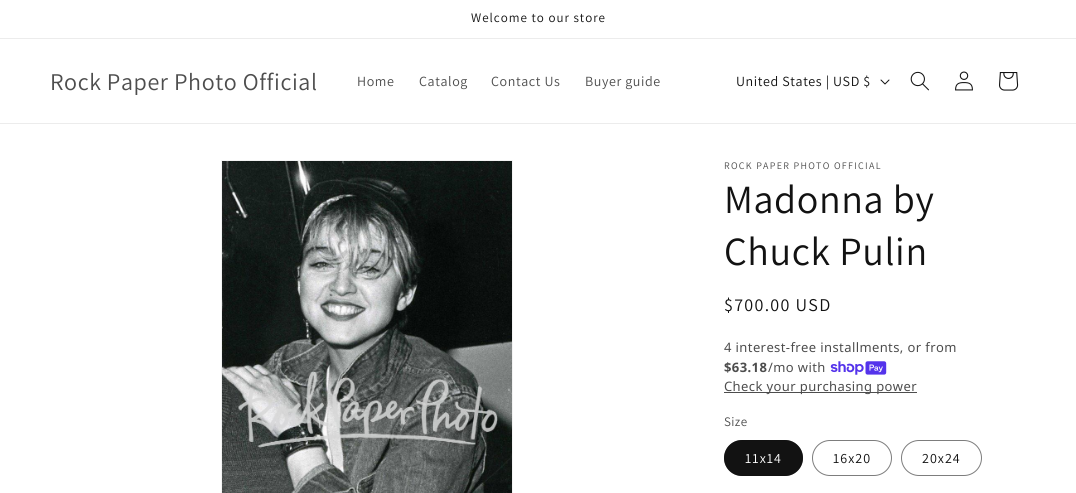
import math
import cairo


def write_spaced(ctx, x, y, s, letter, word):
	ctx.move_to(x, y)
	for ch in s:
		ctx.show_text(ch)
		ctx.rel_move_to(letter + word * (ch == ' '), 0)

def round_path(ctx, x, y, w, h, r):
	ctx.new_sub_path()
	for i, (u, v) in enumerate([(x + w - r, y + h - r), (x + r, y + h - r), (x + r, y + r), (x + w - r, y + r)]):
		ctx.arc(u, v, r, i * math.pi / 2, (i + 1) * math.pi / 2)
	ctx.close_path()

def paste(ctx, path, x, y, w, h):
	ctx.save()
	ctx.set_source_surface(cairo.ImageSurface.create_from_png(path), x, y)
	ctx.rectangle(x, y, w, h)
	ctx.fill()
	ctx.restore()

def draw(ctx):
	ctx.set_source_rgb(1, 1, 1)
	ctx.paint()
	ctx.set_source_rgb(0.925, 0.925, 0.925)
	ctx.rectangle(0, 38, 1076, 1)
	ctx.fill()
	ctx.select_font_face('Assistant')
	ctx.set_font_size(13)
	ctx.set_source_rgb(0.071, 0.071, 0.071)
	write_spaced(ctx, 471, 22, 'Welcome to our store', 1, 0)
	ctx.set_source_rgb(0.925, 0.925, 0.925)
	ctx.rectangle(0, 123, 1076, 1)
	ctx.fill()
	ctx.set_font_size(24)
	ctx.set_source_rgb(0.302, 0.302, 0.302)
	write_spaced(ctx, 50, 90, 'Rock Paper Photo Official', 0.6, 0)
	ctx.set_font_size(14)
	for x, y, s in [
		(357, 86, 'Home'),
		(419, 86, 'Catalog'),
		(491, 86, 'Contact Us'),
		(585, 86, 'Buyer guide'),
	]:
		write_spaced(ctx, x, y, s, 0.6, 0)
	ctx.set_source_rgb(0.071, 0.071, 0.071)
	write_spaced(ctx, 736, 86, 'United States | USD $', 0.6, 0)
	paste(ctx, 'media/1.png', 880, 79, 10, 6)
	paste(ctx, 'media/2.png', 910, 71, 19, 20)
	paste(ctx, 'media/3.png', 955, 71, 18, 20)
	paste(ctx, 'media/4.png', 999, 72, 20, 19)
	ctx.rectangle(221.5, 160.5, 291, 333)
	ctx.set_source_rgb(0.953, 0.953, 0.953)
	ctx.set_line_width(1)
	ctx.stroke()
	paste(ctx, 'media/5.png', 222, 161, 290, 332)
	ctx.set_font_size(10)
	ctx.set_source_rgb(0.302, 0.302, 0.302)
	write_spaced(ctx, 724, 169, 'ROCK PAPER PHOTO OFFICIAL', 1.3, 0)
	ctx.set_font_size(40)
	ctx.set_source_rgb(0.071, 0.071, 0.071)
	write_spaced(ctx, 724, 213, 'Madonna by', 0.6, 0)
	write_spaced(ctx, 724, 265, 'Chuck Pulin', 0.6, 0)
	ctx.set_font_size(18)
	write_spaced(ctx, 724, 311, '$700.00 USD', 1.3, 0)
	ctx.select_font_face('Noto Sans')
	ctx.set_font_size(13)
	ctx.set_source_rgb(0.302, 0.302, 0.302)
	write_spaced(ctx, 724, 352, '4 interest-free installments, or from', 0.4, 0)
	ctx.select_font_face('Noto Sans', cairo.FONT_SLANT_NORMAL, cairo.FONT_WEIGHT_BOLD)
	write_spaced(ctx, 724, 372, '$63.18', 0.4, 0)
	ctx.select_font_face('Noto Sans')
	write_spaced(ctx, 768, 372, '/mo with', 0.4, 0)
	paste(ctx, 'media/6.png', 830, 361, 57, 14)
	ctx.rectangle(724, 392, 193, 1)
	ctx.fill()
	write_spaced(ctx, 724, 391, 'Check your purchasing power', 0.4, 0)
	ctx.select_font_face('Assistant')
	write_spaced(ctx, 724, 426, 'Size', 0.4, 0)
	ctx.set_source_rgb(0.071, 0.071, 0.071)
	round_path(ctx, 724, 440, 79, 36, 18)
	ctx.fill()
	round_path(ctx, 724.5, 440.5, 78, 35, 17.5)
	ctx.set_source_rgba(0.071, 0.071, 0.071, 0.55)
	ctx.stroke()
	ctx.set_font_size(14)
	ctx.set_source_rgb(1, 1, 1)
	write_spaced(ctx, 745, 463, '11x14', 1, 0)
	round_path(ctx, 812.5, 440.5, 79, 35, 17.5)
	ctx.set_source_rgb(0.49, 0.49, 0.49)
	ctx.stroke()
	ctx.set_source_rgb(0.071, 0.071, 0.071)
	write_spaced(ctx, 833, 463, '16x20', 1, 0)
	round_path(ctx, 901.5, 440.5, 80, 35, 17.5)
	ctx.set_source_rgb(0.49, 0.49, 0.49)
	ctx.stroke()
	ctx.set_source_rgb(0.071, 0.071, 0.071)
	write_spaced(ctx, 922, 463, '20x24', 1, 0)


surface = cairo.ImageSurface(cairo.FORMAT_RGB24, 1076, 493)
ctx = cairo.Context(surface)
options = cairo.FontOptions()
options.set_hint_metrics(cairo.HINT_METRICS_OFF)
options.set_hint_style(cairo.HINT_STYLE_NONE)
ctx.set_font_options(options)
ctx.set_miter_limit(4)
draw(ctx)
surface.write_to_png('image.png')
